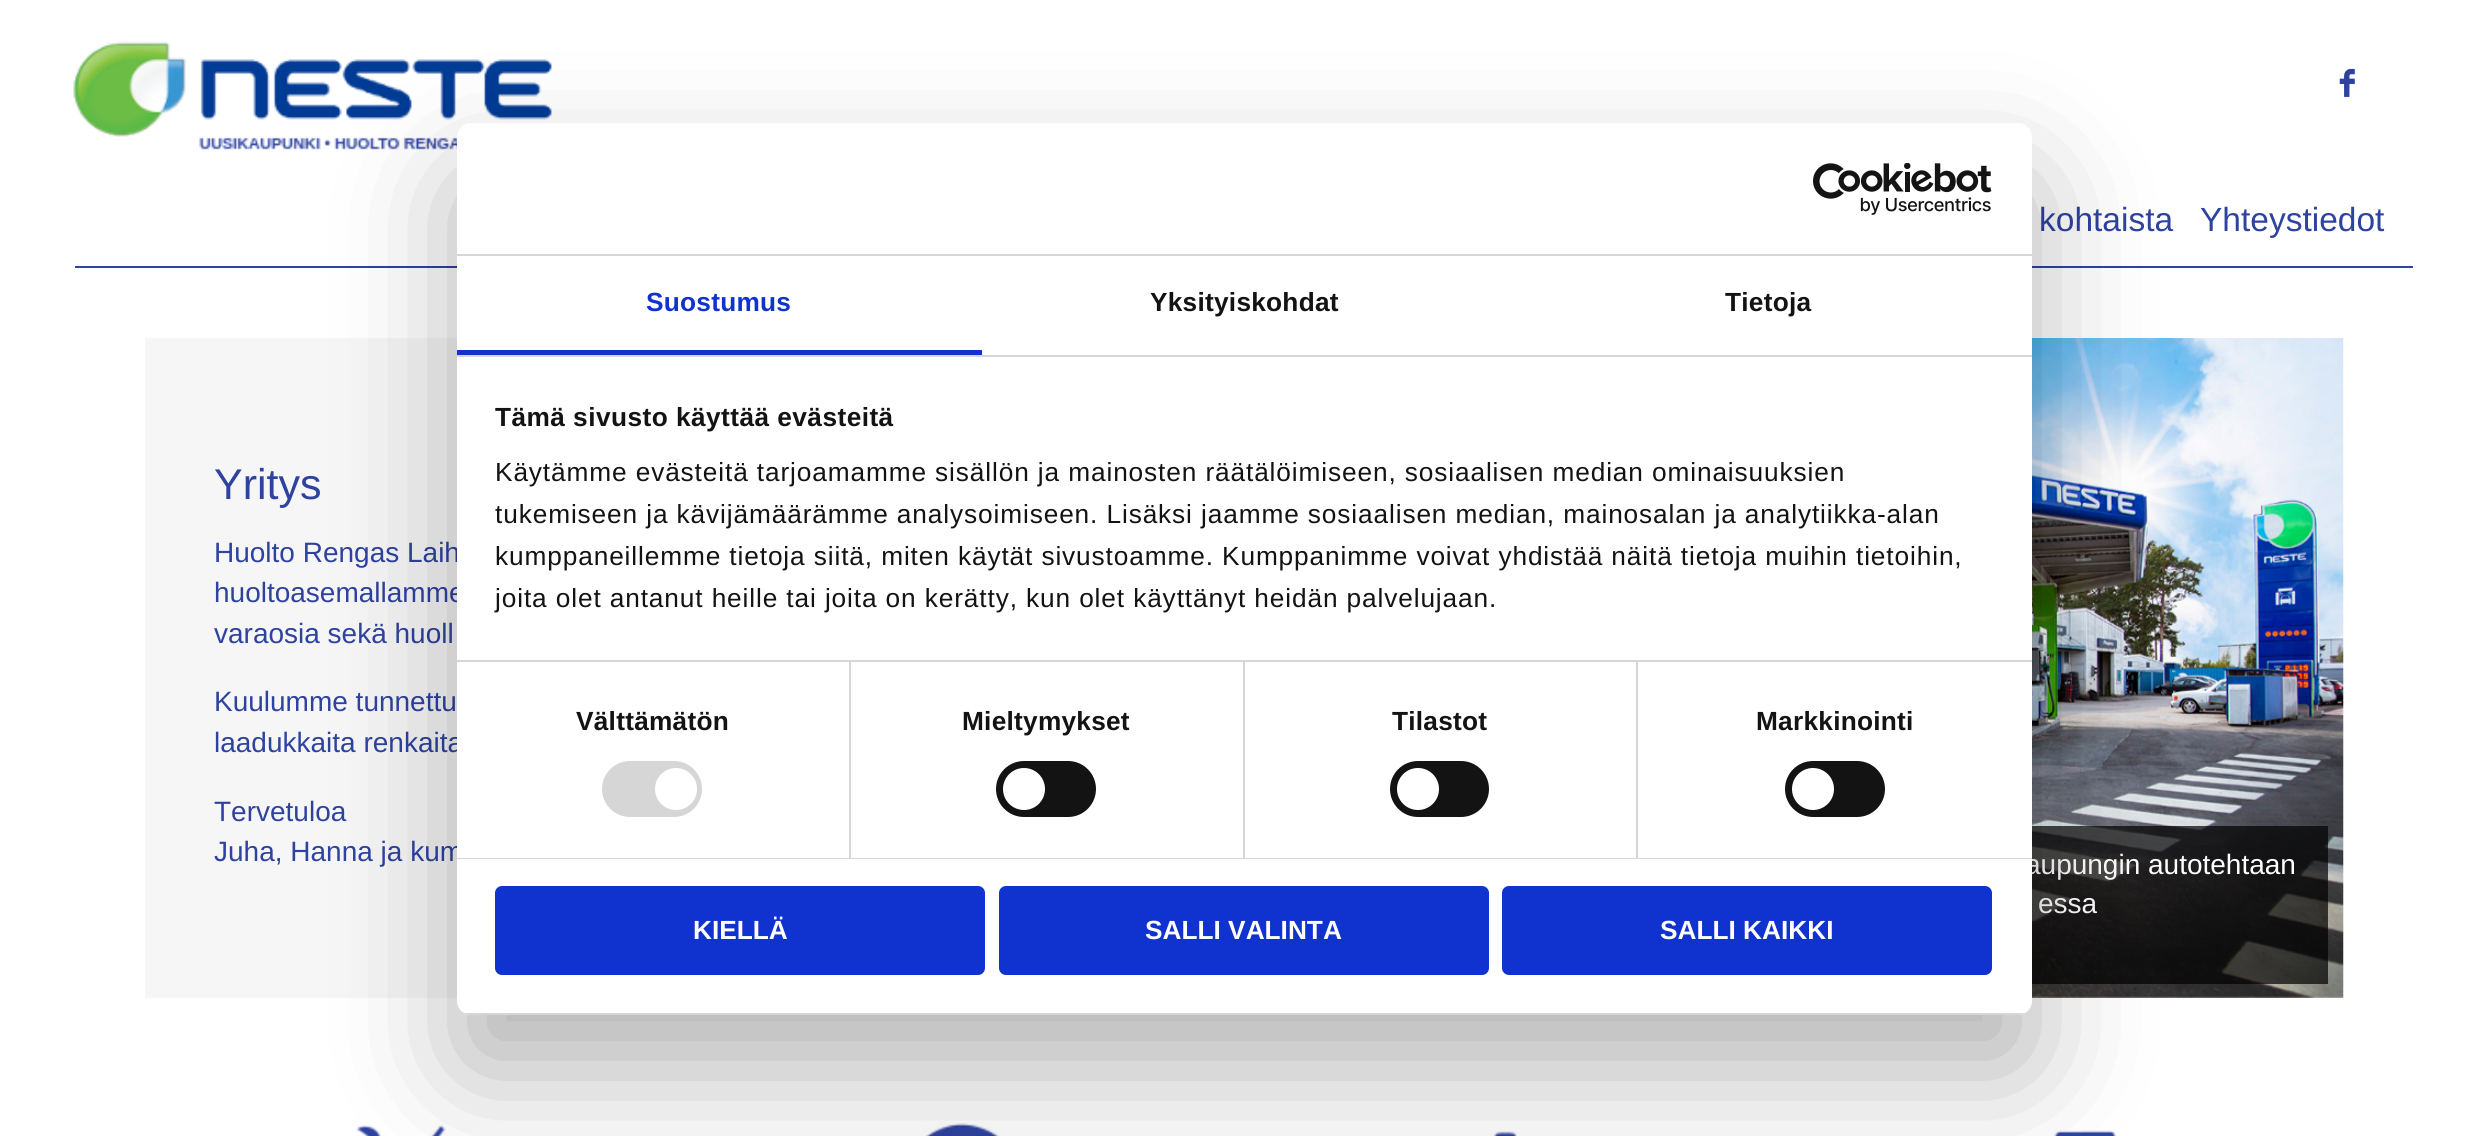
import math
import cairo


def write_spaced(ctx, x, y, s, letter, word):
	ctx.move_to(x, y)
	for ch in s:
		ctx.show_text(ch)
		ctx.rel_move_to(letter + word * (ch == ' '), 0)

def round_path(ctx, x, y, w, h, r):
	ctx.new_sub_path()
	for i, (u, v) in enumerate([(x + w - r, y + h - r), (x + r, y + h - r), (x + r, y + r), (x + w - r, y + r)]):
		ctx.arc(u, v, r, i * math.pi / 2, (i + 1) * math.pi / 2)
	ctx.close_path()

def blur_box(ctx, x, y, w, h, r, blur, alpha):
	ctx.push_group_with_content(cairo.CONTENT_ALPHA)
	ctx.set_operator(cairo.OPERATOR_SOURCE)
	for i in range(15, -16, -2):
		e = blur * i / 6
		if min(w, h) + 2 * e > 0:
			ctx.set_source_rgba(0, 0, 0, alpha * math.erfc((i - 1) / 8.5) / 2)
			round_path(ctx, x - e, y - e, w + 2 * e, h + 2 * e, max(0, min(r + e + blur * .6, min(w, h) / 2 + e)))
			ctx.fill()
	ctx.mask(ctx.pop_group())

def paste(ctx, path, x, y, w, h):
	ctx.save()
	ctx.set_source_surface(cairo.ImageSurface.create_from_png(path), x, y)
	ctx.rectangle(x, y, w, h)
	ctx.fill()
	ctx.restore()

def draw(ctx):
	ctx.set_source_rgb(1, 1, 1)
	ctx.paint()
	paste(ctx, 'media/1.png', 73, 41, 479, 109)
	paste(ctx, 'media/2.png', 2339, 68, 16, 29)
	ctx.select_font_face('Liberation Sans')
	ctx.set_font_size(33.5)
	ctx.set_source_rgb(0.18, 0.259, 0.627)
	ctx.move_to(2039, 231)
	ctx.show_text('kohtaista')
	ctx.move_to(2200, 231)
	ctx.show_text('Yhteystiedot')
	ctx.rectangle(75, 266, 2338, 2)
	ctx.fill()
	ctx.set_source_rgb(0.961, 0.961, 0.961)
	ctx.rectangle(145, 338, 312, 660)
	ctx.fill()
	ctx.set_font_size(43)
	ctx.set_source_rgb(0.18, 0.259, 0.627)
	ctx.move_to(214, 499)
	ctx.show_text('Yritys')
	ctx.set_font_size(28)
	for x, y, s in [
		(214, 562, 'Huolto Rengas Laih'),
		(214, 602, 'huoltoasemallamme'),
		(214, 643, 'varaosia sekä huoll'),
		(214, 711, 'Kuulumme tunnettu'),
		(214, 752, 'laadukkaita renkaita'),
		(214, 821, 'Tervetuloa'),
		(214, 861, 'Juha, Hanna ja kum'),
	]:
		ctx.move_to(x, y)
		ctx.show_text(s)
	paste(ctx, 'media/3.png', 2032, 338, 312, 660)
	ctx.set_source_rgba(0, 0, 0, 0.7)
	ctx.rectangle(2032, 826, 296, 158)
	ctx.fill()
	ctx.set_source_rgb(1, 1, 1)
	ctx.move_to(2025, 874)
	ctx.show_text('aupungin autotehtaan')
	ctx.move_to(2038, 913)
	ctx.show_text('essa')
	paste(ctx, 'media/4.png', 356, 1125, 90, 11)
	paste(ctx, 'media/5.png', 925, 1123, 75, 13)
	paste(ctx, 'media/6.png', 1493, 1131, 24, 5)
	paste(ctx, 'media/7.png', 2053, 1130, 64, 6)
	ctx.set_source_rgb(0, 0, 0)
	blur_box(ctx, 457, 179, 1575, 892, 14, 59.5, 0.3)
	ctx.set_source_rgb(1, 1, 1)
	round_path(ctx, 457, 123, 1575, 892, 14)
	ctx.fill()
	ctx.set_source_rgb(0.839, 0.839, 0.839)
	ctx.rectangle(457, 254, 1575, 2)
	ctx.fill()
	paste(ctx, 'media/8.png', 1813, 163, 179, 52)
	ctx.rectangle(457, 355, 1575, 2)
	ctx.fill()
	ctx.set_source_rgb(0.063, 0.196, 0.812)
	ctx.rectangle(457, 350, 525, 5)
	ctx.fill()
	ctx.select_font_face('Liberation Sans', cairo.FONT_SLANT_NORMAL, cairo.FONT_WEIGHT_BOLD)
	ctx.set_font_size(26.25)
	write_spaced(ctx, 646, 311, 'Suostumus', 0.25, 0)
	ctx.set_source_rgb(0.078, 0.078, 0.078)
	write_spaced(ctx, 1150, 311, 'Yksityiskohdat', 0.25, 0)
	write_spaced(ctx, 1725, 311, 'Tietoja', 0.25, 0)
	ctx.set_source_rgb(0.839, 0.839, 0.839)
	ctx.rectangle(457, 660, 1575, 2)
	ctx.fill()
	ctx.set_source_rgb(0.078, 0.078, 0.078)
	write_spaced(ctx, 495, 426, 'Tämä sivusto käyttää evästeitä', 0.45, 0)
	ctx.select_font_face('Liberation Sans')
	for x, y, s in [
		(495, 481, 'Käytämme evästeitä tarjoamamme sisällön ja mainosten räätälöimiseen, sosiaalisen median ominaisuuksien'),
		(495, 523, 'tukemiseen ja kävijämäärämme analysoimiseen. Lisäksi jaamme sosiaalisen median, mainosalan ja analytiikka-alan'),
		(495, 565, 'kumppaneillemme tietoja siitä, miten käytät sivustoamme. Kumppanimme voivat yhdistää näitä tietoja muihin tietoihin,'),
		(495, 607, 'joita olet antanut heille tai joita on kerätty, kun olet käyttänyt heidän palvelujaan.'),
	]:
		write_spaced(ctx, x, y, s, 0.88, 0)
	ctx.set_source_rgb(0.839, 0.839, 0.839)
	ctx.rectangle(457, 858, 1575, 1)
	ctx.fill()
	ctx.rectangle(849, 662, 2, 196)
	ctx.fill()
	ctx.select_font_face('Liberation Sans', cairo.FONT_SLANT_NORMAL, cairo.FONT_WEIGHT_BOLD)
	ctx.set_source_rgb(0.078, 0.078, 0.078)
	write_spaced(ctx, 576, 730, 'Välttämätön', 0.25, 0)
	ctx.set_source_rgb(0.839, 0.839, 0.839)
	round_path(ctx, 602, 761, 100, 56, 28)
	ctx.fill()
	ctx.set_source_rgb(1, 1, 1)
	ctx.arc(676, 789, 21, 0, 2 * math.pi)
	ctx.fill()
	ctx.set_source_rgb(0.839, 0.839, 0.839)
	ctx.rectangle(1243, 662, 2, 196)
	ctx.fill()
	ctx.set_source_rgb(0.078, 0.078, 0.078)
	write_spaced(ctx, 962, 730, 'Mieltymykset', 0.25, 0)
	round_path(ctx, 996, 761, 100, 56, 28)
	ctx.fill()
	ctx.set_source_rgb(1, 1, 1)
	ctx.arc(1024, 789, 21, 0, 2 * math.pi)
	ctx.fill()
	ctx.set_source_rgb(0.839, 0.839, 0.839)
	ctx.rectangle(1636, 662, 2, 196)
	ctx.fill()
	ctx.set_source_rgb(0.078, 0.078, 0.078)
	write_spaced(ctx, 1392, 730, 'Tilastot', 0.25, 0)
	round_path(ctx, 1390, 761, 99, 56, 28)
	ctx.fill()
	ctx.set_source_rgb(1, 1, 1)
	ctx.arc(1418, 789, 21, 0, 2 * math.pi)
	ctx.fill()
	ctx.set_source_rgb(0.078, 0.078, 0.078)
	write_spaced(ctx, 1756, 730, 'Markkinointi', 0.25, 0)
	round_path(ctx, 1785, 761, 100, 56, 28)
	ctx.fill()
	ctx.set_source_rgb(1, 1, 1)
	ctx.arc(1813, 789, 21, 0, 2 * math.pi)
	ctx.fill()
	ctx.save()
	round_path(ctx, 457, 123, 1575, 892, 14)
	ctx.clip()
	ctx.set_source_rgb(0.839, 0.839, 0.839)
	ctx.rectangle(457, 1013, 1575, 2)
	ctx.fill()
	ctx.restore()
	ctx.set_source_rgb(0.063, 0.196, 0.812)
	round_path(ctx, 497, 888, 486, 85, 5)
	ctx.fill_preserve()
	ctx.set_line_width(4)
	ctx.stroke()
	ctx.set_source_rgb(1, 1, 1)
	ctx.move_to(693, 939)
	ctx.show_text('KIELLÄ')
	ctx.set_source_rgb(0.063, 0.196, 0.812)
	round_path(ctx, 1001, 888, 486, 85, 5)
	ctx.fill_preserve()
	ctx.stroke()
	ctx.set_source_rgb(1, 1, 1)
	ctx.move_to(1145, 939)
	ctx.show_text('SALLI VALINTA')
	ctx.set_source_rgb(0.063, 0.196, 0.812)
	round_path(ctx, 1504, 888, 486, 85, 5)
	ctx.fill_preserve()
	ctx.stroke()
	ctx.set_source_rgb(1, 1, 1)
	ctx.move_to(1660, 939)
	ctx.show_text('SALLI KAIKKI')


surface = cairo.ImageSurface(cairo.FORMAT_RGB24, 2486, 1136)
ctx = cairo.Context(surface)
options = cairo.FontOptions()
options.set_hint_metrics(cairo.HINT_METRICS_OFF)
options.set_hint_style(cairo.HINT_STYLE_NONE)
ctx.set_font_options(options)
ctx.set_miter_limit(4)
draw(ctx)
surface.write_to_png('image.png')
